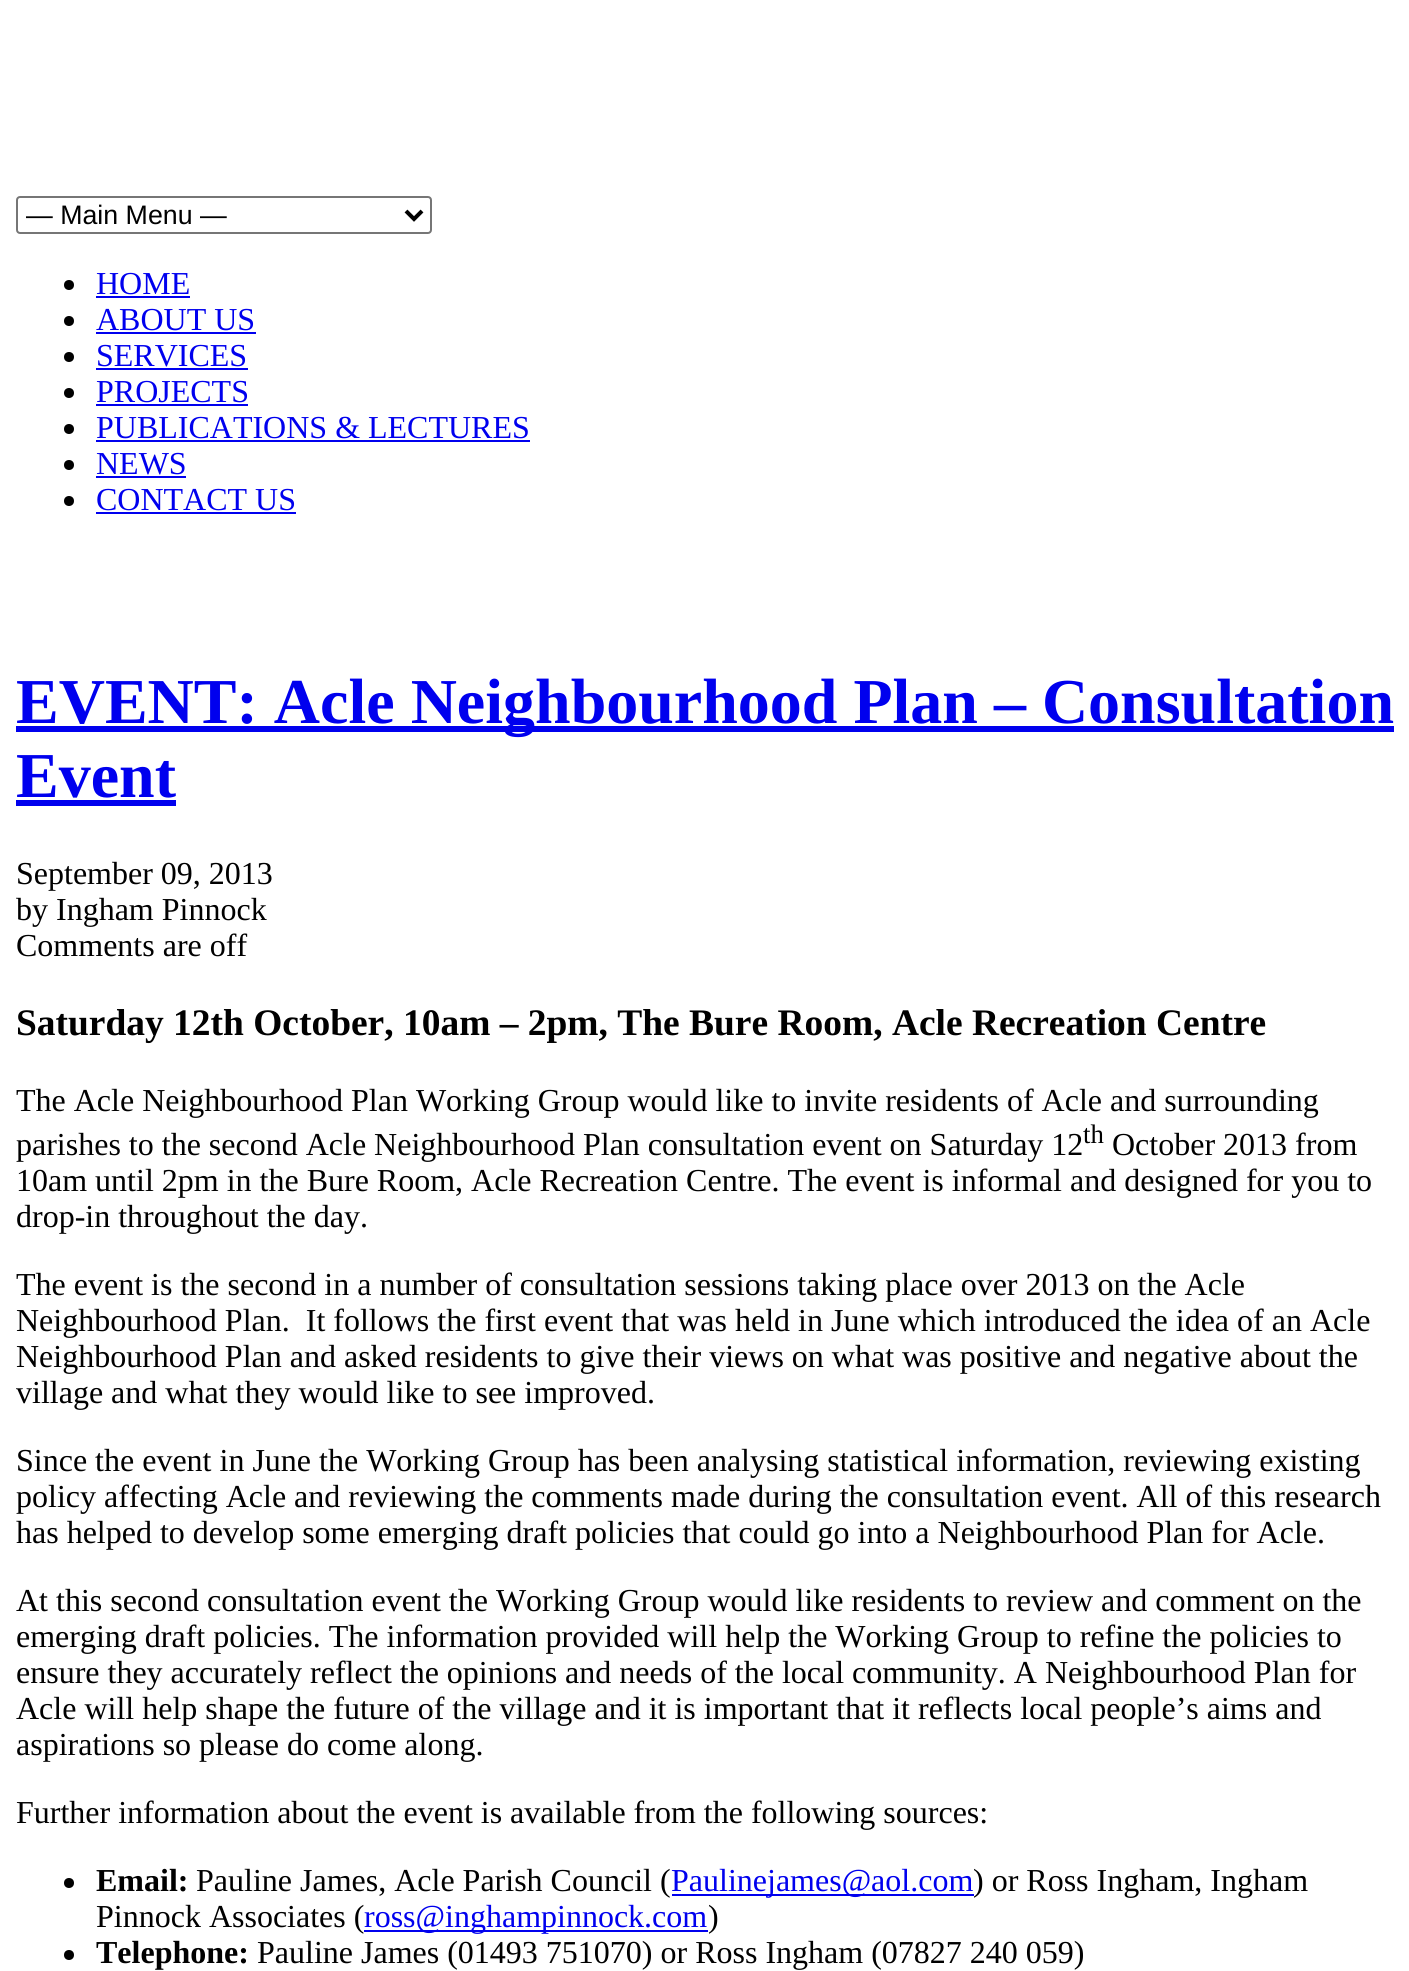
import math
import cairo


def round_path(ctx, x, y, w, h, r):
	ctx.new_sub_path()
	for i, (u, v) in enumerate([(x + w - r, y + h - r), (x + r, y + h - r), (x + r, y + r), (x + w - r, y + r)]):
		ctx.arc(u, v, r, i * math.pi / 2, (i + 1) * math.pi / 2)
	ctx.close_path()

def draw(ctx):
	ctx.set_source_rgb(1, 1, 1)
	ctx.paint()
	round_path(ctx, 17, 197, 414, 36, 3)
	ctx.set_source_rgb(0.463, 0.463, 0.463)
	ctx.stroke()
	ctx.new_path()
	ctx.move_to(406, 211)
	ctx.line_to(414, 219)
	ctx.line_to(422, 211)
	ctx.set_source_rgb(0, 0, 0)
	ctx.set_line_width(4)
	ctx.stroke()
	ctx.select_font_face('Liberation Sans')
	ctx.set_font_size(26.75)
	ctx.move_to(26, 224)
	ctx.show_text('— Main Menu —')
	ctx.new_path()
	ctx.arc(69, 285, 5, 0, 2 * math.pi)
	ctx.fill()
	ctx.select_font_face('Liberation Serif')
	ctx.set_font_size(32)
	ctx.set_source_rgb(0, 0, 0.933)
	ctx.move_to(96, 294)
	ctx.show_text('HOME')
	ctx.rectangle(96, 296, 94, 2)
	ctx.fill()
	ctx.set_source_rgb(0, 0, 0)
	ctx.arc(69, 321, 5, 0, 2 * math.pi)
	ctx.fill()
	ctx.set_source_rgb(0, 0, 0.933)
	ctx.move_to(96, 330)
	ctx.show_text('ABOUT US')
	ctx.rectangle(96, 332, 160, 2)
	ctx.fill()
	ctx.set_source_rgb(0, 0, 0)
	ctx.arc(69, 357, 5, 0, 2 * math.pi)
	ctx.fill()
	ctx.set_source_rgb(0, 0, 0.933)
	ctx.move_to(96, 366)
	ctx.show_text('SERVICES')
	ctx.rectangle(96, 368, 152, 2)
	ctx.fill()
	ctx.set_source_rgb(0, 0, 0)
	ctx.arc(69, 393, 5, 0, 2 * math.pi)
	ctx.fill()
	ctx.set_source_rgb(0, 0, 0.933)
	ctx.move_to(96, 402)
	ctx.show_text('PROJECTS')
	ctx.rectangle(96, 404, 152, 2)
	ctx.fill()
	ctx.set_source_rgb(0, 0, 0)
	ctx.arc(69, 429, 5, 0, 2 * math.pi)
	ctx.fill()
	ctx.set_source_rgb(0, 0, 0.933)
	ctx.move_to(96, 438)
	ctx.show_text('PUBLICATIONS & LECTURES')
	ctx.rectangle(96, 440, 434, 2)
	ctx.fill()
	ctx.set_source_rgb(0, 0, 0)
	ctx.arc(69, 465, 5, 0, 2 * math.pi)
	ctx.fill()
	ctx.set_source_rgb(0, 0, 0.933)
	ctx.move_to(96, 474)
	ctx.show_text('NEWS')
	ctx.rectangle(96, 476, 90, 2)
	ctx.fill()
	ctx.set_source_rgb(0, 0, 0)
	ctx.arc(69, 501, 5, 0, 2 * math.pi)
	ctx.fill()
	ctx.set_source_rgb(0, 0, 0.933)
	ctx.move_to(96, 510)
	ctx.show_text('CONTACT US')
	ctx.rectangle(96, 512, 200, 2)
	ctx.fill()
	ctx.rectangle(16, 726, 1378, 6)
	ctx.fill()
	ctx.select_font_face('Liberation Serif', cairo.FONT_SLANT_NORMAL, cairo.FONT_WEIGHT_BOLD)
	ctx.set_font_size(64)
	ctx.move_to(16, 723)
	ctx.show_text('EVENT: Acle Neighbourhood Plan – Consultation')
	ctx.move_to(16, 797)
	ctx.show_text('Event')
	ctx.rectangle(16, 800, 160, 6)
	ctx.fill()
	ctx.select_font_face('Liberation Serif')
	ctx.set_font_size(32)
	ctx.set_source_rgb(0, 0, 0)
	for x, y, s in [
		(16, 884, 'September 09, 2013'),
		(16, 920, 'by Ingham Pinnock'),
		(16, 956, 'Comments are off'),
	]:
		ctx.move_to(x, y)
		ctx.show_text(s)
	ctx.select_font_face('Liberation Serif', cairo.FONT_SLANT_NORMAL, cairo.FONT_WEIGHT_BOLD)
	ctx.set_font_size(37.45)
	ctx.move_to(16, 1035)
	ctx.show_text('Saturday 12th October, 10am – 2pm, The Bure Room, Acle Recreation Centre')
	ctx.select_font_face('Liberation Serif')
	ctx.set_font_size(32)
	ctx.move_to(16, 1111)
	ctx.show_text('The Acle Neighbourhood Plan Working Group would like to invite residents of Acle and surrounding')
	ctx.move_to(16, 1155)
	ctx.show_text('parishes to the second Acle Neighbourhood Plan consultation event on Saturday 12')
	ctx.set_font_size(26.75)
	ctx.move_to(1083, 1143)
	ctx.show_text('th')
	ctx.set_font_size(32)
	for x, y, s in [
		(1112, 1155, 'October 2013 from'),
		(16, 1191, '10am until 2pm in the Bure Room, Acle Recreation Centre. The event is informal and designed for you to'),
		(16, 1227, 'drop-in throughout the day.'),
		(16, 1295, 'The event is the second in a number of consultation sessions taking place over 2013 on the Acle'),
		(16, 1331, 'Neighbourhood Plan.  It follows the first event that was held in June which introduced the idea of an Acle'),
		(16, 1367, 'Neighbourhood Plan and asked residents to give their views on what was positive and negative about the'),
		(16, 1403, 'village and what they would like to see improved.'),
		(16, 1471, 'Since the event in June the Working Group has been analysing statistical information, reviewing existing'),
		(16, 1507, 'policy affecting Acle and reviewing the comments made during the consultation event. All of this research'),
		(16, 1543, 'has helped to develop some emerging draft policies that could go into a Neighbourhood Plan for Acle.'),
		(16, 1611, 'At this second consultation event the Working Group would like residents to review and comment on the'),
		(16, 1647, 'emerging draft policies. The information provided will help the Working Group to refine the policies to'),
		(16, 1683, 'ensure they accurately reflect the opinions and needs of the local community. A Neighbourhood Plan for'),
		(16, 1719, 'Acle will help shape the future of the village and it is important that it reflects local people’s aims and'),
		(16, 1755, 'aspirations so please do come along.'),
		(16, 1823, 'Further information about the event is available from the following sources:'),
	]:
		ctx.move_to(x, y)
		ctx.show_text(s)
	ctx.new_path()
	ctx.arc(69, 1883, 5, 0, 2 * math.pi)
	ctx.fill()
	ctx.select_font_face('Liberation Serif', cairo.FONT_SLANT_NORMAL, cairo.FONT_WEIGHT_BOLD)
	ctx.move_to(96, 1891)
	ctx.show_text('Email:')
	ctx.select_font_face('Liberation Serif')
	ctx.move_to(196, 1891)
	ctx.show_text('Pauline James, Acle Parish Council (')
	ctx.set_source_rgb(0, 0, 0.933)
	ctx.rectangle(672, 1894, 302, 2)
	ctx.fill()
	ctx.move_to(671, 1891)
	ctx.show_text('Paulinejames@aol.com')
	ctx.set_source_rgb(0, 0, 0)
	ctx.move_to(973, 1891)
	ctx.show_text(') or Ross Ingham, Ingham')
	ctx.move_to(96, 1927)
	ctx.show_text('Pinnock Associates (')
	ctx.set_source_rgb(0, 0, 0.933)
	ctx.rectangle(364, 1930, 344, 2)
	ctx.fill()
	ctx.move_to(364, 1927)
	ctx.show_text('ross@inghampinnock.com')
	ctx.set_source_rgb(0, 0, 0)
	ctx.move_to(708, 1927)
	ctx.show_text(')')
	ctx.new_path()
	ctx.arc(69, 1955, 5, 0, 2 * math.pi)
	ctx.fill()
	ctx.select_font_face('Liberation Serif', cairo.FONT_SLANT_NORMAL, cairo.FONT_WEIGHT_BOLD)
	ctx.move_to(96, 1963)
	ctx.show_text('Telephone:')
	ctx.select_font_face('Liberation Serif')
	ctx.move_to(257, 1963)
	ctx.show_text('Pauline James (01493 751070) or Ross Ingham (07827 240 059)')


surface = cairo.ImageSurface(cairo.FORMAT_RGB24, 1409, 1971)
ctx = cairo.Context(surface)
options = cairo.FontOptions()
options.set_hint_metrics(cairo.HINT_METRICS_OFF)
options.set_hint_style(cairo.HINT_STYLE_NONE)
ctx.set_font_options(options)
ctx.set_miter_limit(4)
draw(ctx)
surface.write_to_png('image.png')
